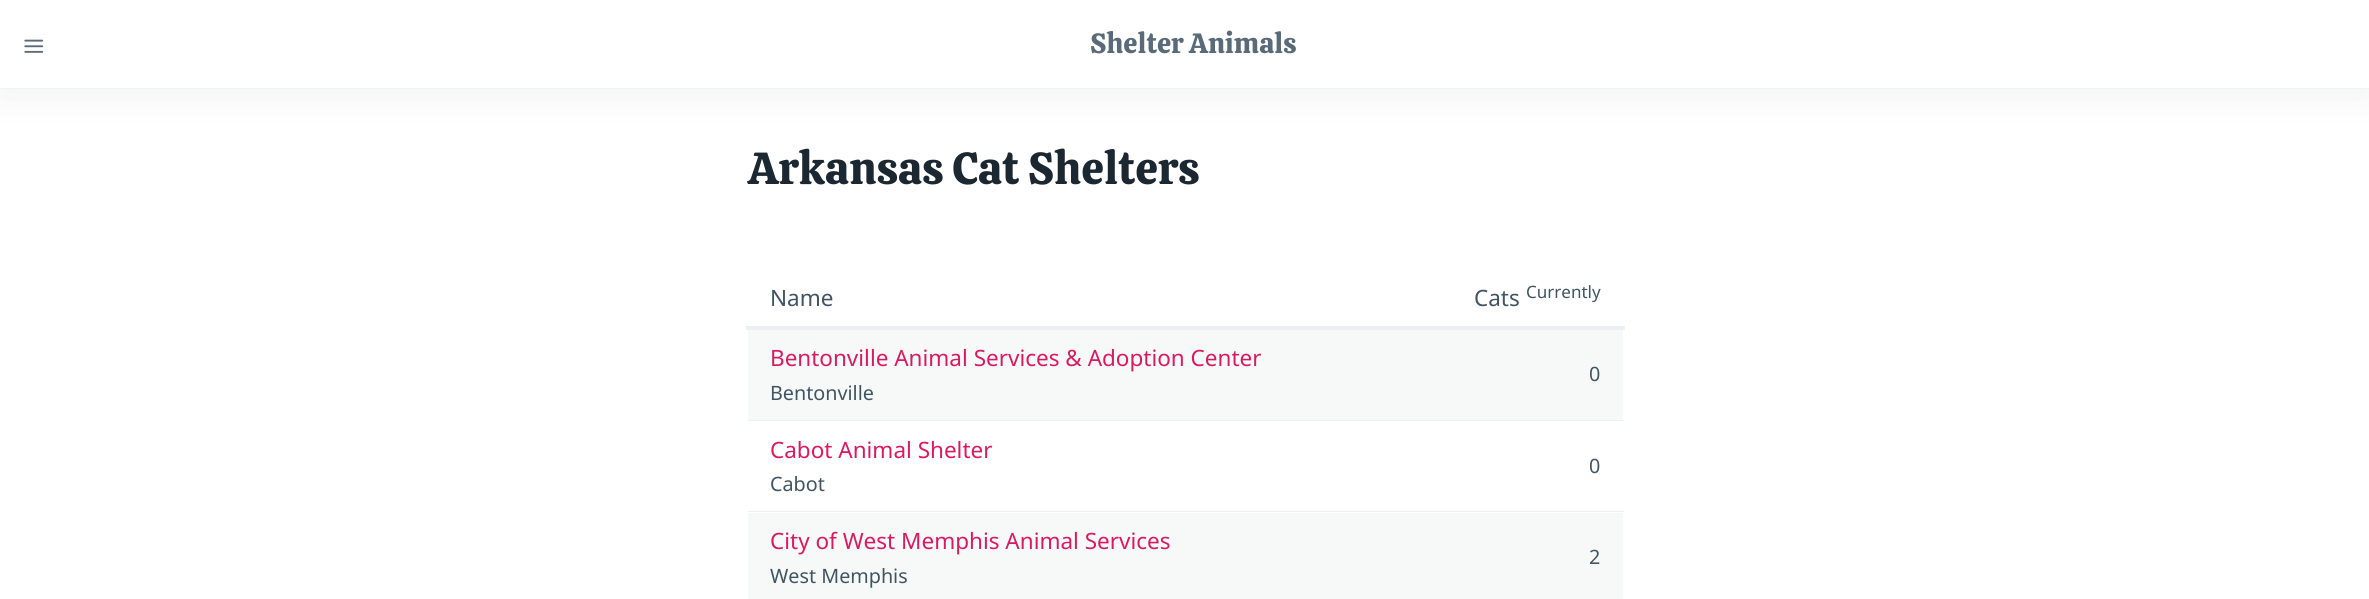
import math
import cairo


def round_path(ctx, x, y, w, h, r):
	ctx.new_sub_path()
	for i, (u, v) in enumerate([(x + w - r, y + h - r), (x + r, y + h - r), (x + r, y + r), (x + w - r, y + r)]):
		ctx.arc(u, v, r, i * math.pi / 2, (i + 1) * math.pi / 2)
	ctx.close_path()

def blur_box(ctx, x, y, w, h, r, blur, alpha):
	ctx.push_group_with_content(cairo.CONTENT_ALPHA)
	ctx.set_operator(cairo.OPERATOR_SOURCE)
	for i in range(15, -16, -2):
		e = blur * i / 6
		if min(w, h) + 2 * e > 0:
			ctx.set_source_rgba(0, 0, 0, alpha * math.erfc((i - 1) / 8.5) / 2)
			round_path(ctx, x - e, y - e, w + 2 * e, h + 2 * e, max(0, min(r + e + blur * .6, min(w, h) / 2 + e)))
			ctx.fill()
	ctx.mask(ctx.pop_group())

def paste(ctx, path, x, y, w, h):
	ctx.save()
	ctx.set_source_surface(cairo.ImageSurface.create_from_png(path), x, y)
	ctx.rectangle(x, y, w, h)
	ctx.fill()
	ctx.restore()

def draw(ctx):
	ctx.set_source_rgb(1, 1, 1)
	ctx.paint()
	ctx.rectangle(-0.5, -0.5, 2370, 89)
	ctx.set_source_rgb(0.98, 0.98, 0.98)
	ctx.set_line_width(1)
	ctx.stroke()
	ctx.set_source_rgb(0.106, 0.157, 0.196)
	blur_box(ctx, 0, 3, 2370, 87, 0, 22.5, 0.08)
	ctx.set_source_rgb(1, 1, 1)
	ctx.rectangle(0, 0, 2369, 88)
	ctx.fill()
	paste(ctx, 'media/1.png', 24, 39, 20, 14)
	ctx.select_font_face('Calistoga')
	ctx.set_font_size(28)
	ctx.set_source_rgb(0.349, 0.42, 0.471)
	ctx.move_to(1090, 53)
	ctx.show_text('Shelter Animals')
	ctx.set_font_size(45)
	ctx.set_source_rgb(0.106, 0.157, 0.196)
	ctx.move_to(748, 184)
	ctx.show_text('Arkansas Cat Shelters')
	ctx.select_font_face('Noto Sans')
	ctx.set_font_size(22.5)
	ctx.set_source_rgb(0.255, 0.329, 0.384)
	ctx.move_to(770, 306)
	ctx.show_text('Name')
	ctx.set_source_rgb(0.929, 0.941, 0.953)
	ctx.rectangle(746, 326, 879, 4)
	ctx.fill()
	ctx.set_source_rgb(0.255, 0.329, 0.384)
	ctx.move_to(1474, 306)
	ctx.show_text('Cats')
	ctx.set_font_size(17)
	ctx.move_to(1526, 298)
	ctx.show_text('Currently')
	ctx.set_source_rgb(0.965, 0.973, 0.976)
	ctx.rectangle(748, 330, 875, 90)
	ctx.fill()
	ctx.set_font_size(22.5)
	ctx.set_source_rgb(0.847, 0.106, 0.376)
	ctx.move_to(770, 366)
	ctx.show_text('Bentonville Animal Services & Adoption Center')
	ctx.set_font_size(19.75)
	ctx.set_source_rgb(0.255, 0.329, 0.384)
	ctx.move_to(770, 400)
	ctx.show_text('Bentonville')
	ctx.set_source_rgb(0.929, 0.941, 0.953)
	ctx.rectangle(748, 420, 876, 1)
	ctx.fill()
	ctx.set_source_rgb(0.255, 0.329, 0.384)
	ctx.move_to(1589, 381)
	ctx.show_text('0')
	ctx.set_font_size(22.5)
	ctx.set_source_rgb(0.847, 0.106, 0.376)
	ctx.move_to(770, 458)
	ctx.show_text('Cabot Animal Shelter')
	ctx.set_font_size(19.75)
	ctx.set_source_rgb(0.255, 0.329, 0.384)
	ctx.move_to(770, 491)
	ctx.show_text('Cabot')
	ctx.set_source_rgb(0.929, 0.941, 0.953)
	ctx.rectangle(748, 511, 876, 1)
	ctx.fill()
	ctx.set_source_rgb(0.255, 0.329, 0.384)
	ctx.move_to(1589, 473)
	ctx.show_text('0')
	ctx.set_source_rgb(0.965, 0.973, 0.976)
	ctx.rectangle(748, 513, 875, 86)
	ctx.fill()
	ctx.set_font_size(22.5)
	ctx.set_source_rgb(0.847, 0.106, 0.376)
	ctx.move_to(770, 549)
	ctx.show_text('City of West Memphis Animal Services')
	ctx.set_font_size(19.75)
	ctx.set_source_rgb(0.255, 0.329, 0.384)
	ctx.move_to(770, 583)
	ctx.show_text('West Memphis')
	ctx.move_to(1589, 564)
	ctx.show_text('2')


surface = cairo.ImageSurface(cairo.FORMAT_RGB24, 2369, 599)
ctx = cairo.Context(surface)
options = cairo.FontOptions()
options.set_hint_metrics(cairo.HINT_METRICS_OFF)
options.set_hint_style(cairo.HINT_STYLE_NONE)
ctx.set_font_options(options)
ctx.set_miter_limit(4)
draw(ctx)
surface.write_to_png('image.png')
